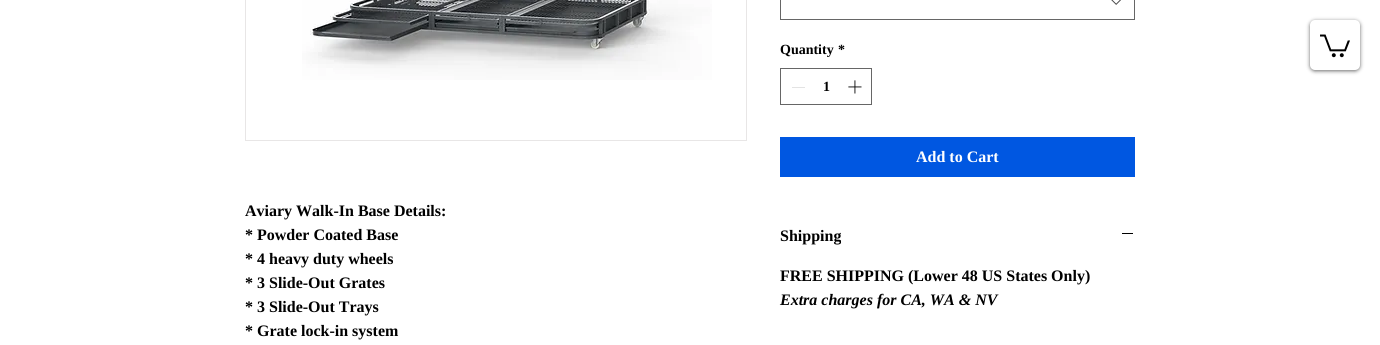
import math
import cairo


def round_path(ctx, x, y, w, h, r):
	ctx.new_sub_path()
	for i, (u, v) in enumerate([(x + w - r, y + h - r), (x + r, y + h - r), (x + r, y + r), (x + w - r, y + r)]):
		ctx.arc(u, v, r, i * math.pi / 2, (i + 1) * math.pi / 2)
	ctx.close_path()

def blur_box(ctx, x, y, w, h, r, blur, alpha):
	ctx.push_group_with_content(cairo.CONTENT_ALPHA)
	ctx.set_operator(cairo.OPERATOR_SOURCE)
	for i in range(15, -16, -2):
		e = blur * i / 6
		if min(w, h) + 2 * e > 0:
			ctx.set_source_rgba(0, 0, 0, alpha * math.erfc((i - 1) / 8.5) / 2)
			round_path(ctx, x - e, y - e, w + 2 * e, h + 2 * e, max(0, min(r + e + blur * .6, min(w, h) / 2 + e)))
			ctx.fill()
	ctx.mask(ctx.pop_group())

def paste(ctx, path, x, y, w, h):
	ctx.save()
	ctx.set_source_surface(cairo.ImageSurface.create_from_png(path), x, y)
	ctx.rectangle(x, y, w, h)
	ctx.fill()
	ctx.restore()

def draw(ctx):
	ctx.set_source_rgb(1, 1, 1)
	ctx.paint()
	ctx.rectangle(245.5, -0.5, 501, 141)
	ctx.set_source_rgb(0.91, 0.902, 0.902)
	ctx.set_line_width(1)
	ctx.stroke()
	paste(ctx, 'media/1.png', 302, 0, 410, 80)
	ctx.select_font_face('Liberation Serif', cairo.FONT_SLANT_NORMAL, cairo.FONT_WEIGHT_BOLD)
	ctx.set_font_size(16)
	ctx.set_source_rgb(0, 0, 0)
	for x, y, s in [
		(245, 216, 'Aviary Walk-In Base Details:'),
		(245, 240, '* Powder Coated Base'),
		(245, 264, '* 4 heavy duty wheels'),
		(245, 288, '* 3 Slide-Out Grates'),
		(245, 312, '* 3 Slide-Out Trays'),
		(245, 336, '* Grate lock-in system'),
	]:
		ctx.move_to(x, y)
		ctx.show_text(s)
	ctx.rectangle(780.5, -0.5, 354, 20)
	ctx.set_source_rgb(0.4, 0.4, 0.4)
	ctx.stroke()
	paste(ctx, 'media/2.png', 1111, 0, 10, 5)
	ctx.set_font_size(14)
	ctx.set_source_rgb(0, 0, 0)
	ctx.move_to(780, 54)
	ctx.show_text('Quantity')
	ctx.move_to(838, 54)
	ctx.show_text('*')
	ctx.rectangle(780.5, 68.5, 91, 36)
	ctx.set_source_rgb(0.4, 0.4, 0.4)
	ctx.stroke()
	ctx.set_source_rgb(0.89, 0.89, 0.89)
	ctx.rectangle(792, 87, 13, 1)
	ctx.fill()
	ctx.set_source_rgb(0, 0, 0)
	ctx.move_to(823, 91)
	ctx.show_text('1')
	paste(ctx, 'media/3.png', 848, 80, 14, 14)
	ctx.set_source_rgb(0, 0.341, 0.882)
	ctx.rectangle(780, 137, 355, 40)
	ctx.fill()
	ctx.set_font_size(16)
	ctx.set_source_rgb(1, 1, 1)
	ctx.move_to(916, 162)
	ctx.show_text('Add to Cart')
	ctx.set_source_rgb(0, 0, 0)
	ctx.move_to(780, 241)
	ctx.show_text('Shipping')
	ctx.rectangle(1122, 233, 11, 1)
	ctx.fill()
	ctx.move_to(780, 281)
	ctx.show_text('FREE SHIPPING (Lower 48 US States Only)')
	ctx.select_font_face('Liberation Serif', cairo.FONT_SLANT_ITALIC, cairo.FONT_WEIGHT_BOLD)
	ctx.move_to(780, 305)
	ctx.show_text('Extra charges for CA, WA & NV')
	ctx.set_source_rgb(0, 0, 0)
	blur_box(ctx, 1310, 21, 50, 50, 5, 2, 0.6)
	ctx.set_source_rgb(1, 1, 1)
	round_path(ctx, 1310, 20, 50, 50, 5)
	ctx.fill()
	paste(ctx, 'media/4.png', 1320, 34, 30, 24)


surface = cairo.ImageSurface(cairo.FORMAT_RGB24, 1380, 345)
ctx = cairo.Context(surface)
options = cairo.FontOptions()
options.set_hint_metrics(cairo.HINT_METRICS_OFF)
options.set_hint_style(cairo.HINT_STYLE_NONE)
ctx.set_font_options(options)
ctx.set_miter_limit(4)
draw(ctx)
surface.write_to_png('image.png')
